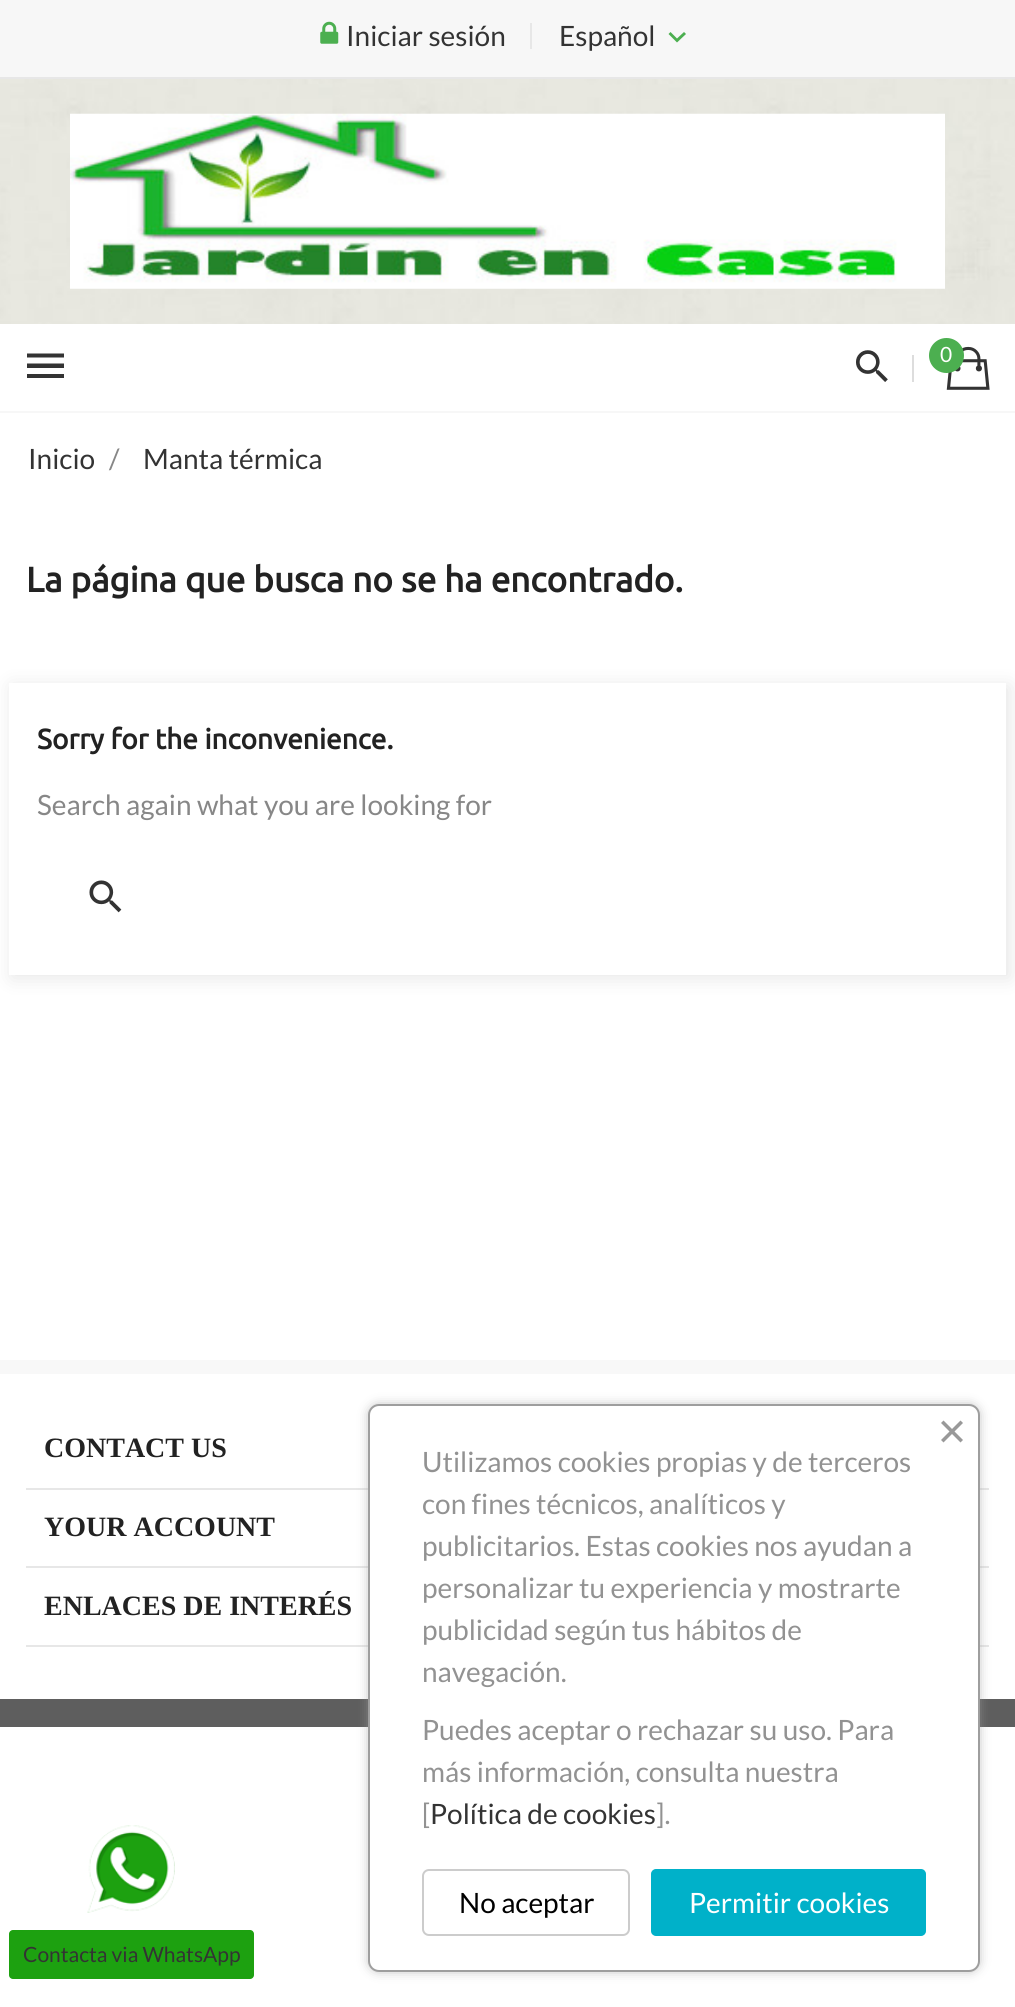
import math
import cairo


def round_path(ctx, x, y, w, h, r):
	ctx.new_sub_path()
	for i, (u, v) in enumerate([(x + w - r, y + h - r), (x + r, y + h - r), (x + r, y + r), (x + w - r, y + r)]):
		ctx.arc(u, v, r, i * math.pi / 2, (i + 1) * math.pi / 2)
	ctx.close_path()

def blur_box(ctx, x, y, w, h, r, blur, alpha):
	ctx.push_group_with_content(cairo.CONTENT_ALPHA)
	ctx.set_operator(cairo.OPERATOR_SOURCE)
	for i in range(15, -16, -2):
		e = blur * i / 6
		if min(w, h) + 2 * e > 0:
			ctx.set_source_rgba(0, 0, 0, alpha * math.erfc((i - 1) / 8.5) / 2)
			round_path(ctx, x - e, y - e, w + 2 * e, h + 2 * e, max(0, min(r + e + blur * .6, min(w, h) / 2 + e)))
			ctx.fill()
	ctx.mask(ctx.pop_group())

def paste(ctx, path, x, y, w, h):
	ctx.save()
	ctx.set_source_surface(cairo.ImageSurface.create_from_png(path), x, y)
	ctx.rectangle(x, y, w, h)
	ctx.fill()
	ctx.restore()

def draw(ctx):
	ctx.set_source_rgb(1, 1, 1)
	ctx.paint()
	paste(ctx, 'media/1.png', 0, 79, 1015, 245)
	ctx.set_source_rgb(0.965, 0.965, 0.965)
	ctx.rectangle(0, 0, 1015, 77)
	ctx.fill()
	ctx.set_source_rgb(0.906, 0.906, 0.906)
	ctx.rectangle(0, 77, 1015, 2)
	ctx.fill()
	paste(ctx, 'media/2.png', 320, 21, 19, 23)
	ctx.select_font_face('Lato')
	ctx.set_font_size(28)
	ctx.set_source_rgb(0.2, 0.2, 0.2)
	ctx.move_to(346, 46)
	ctx.show_text('Iniciar sesión')
	ctx.set_source_rgb(0.906, 0.906, 0.906)
	ctx.rectangle(530, 23, 2, 26)
	ctx.fill()
	ctx.set_source_rgb(0.2, 0.2, 0.2)
	ctx.move_to(559, 46)
	ctx.show_text('Español')
	ctx.set_source_rgb(0.298, 0.686, 0.314)
	ctx.new_path()
	ctx.move_to(684, 32)
	ctx.line_to(686, 34)
	ctx.line_to(677, 42.5)
	ctx.line_to(668.5, 34)
	ctx.line_to(670.5, 32)
	ctx.line_to(677, 38.5)
	ctx.close_path()
	ctx.fill()
	paste(ctx, 'media/3.png', 70, 113, 875, 176)
	ctx.set_source_rgb(0.2, 0.2, 0.2)
	ctx.new_path()
	ctx.move_to(27, 353.5)
	ctx.line_to(64, 353.5)
	ctx.line_to(64, 357.5)
	ctx.line_to(27, 357.5)
	ctx.close_path()
	ctx.move_to(27, 368)
	ctx.line_to(27, 363.5)
	ctx.line_to(64, 363.5)
	ctx.line_to(64, 368)
	ctx.close_path()
	ctx.move_to(27, 378)
	ctx.line_to(27, 374)
	ctx.line_to(64, 374)
	ctx.line_to(64, 378)
	ctx.close_path()
	ctx.fill()
	paste(ctx, 'media/4.png', 856, 350, 32, 32)
	ctx.set_source_rgb(0.867, 0.867, 0.867)
	ctx.rectangle(912, 355, 2, 27)
	ctx.fill()
	paste(ctx, 'media/5.png', 946, 346, 44, 44)
	ctx.set_source_rgb(0.298, 0.686, 0.314)
	ctx.arc(946.5, 355.5, 17.5, 0, 2 * math.pi)
	ctx.fill()
	ctx.set_font_size(21)
	ctx.set_source_rgb(1, 1, 1)
	ctx.move_to(940, 362)
	ctx.show_text('0')
	ctx.set_source_rgb(0.965, 0.965, 0.965)
	ctx.rectangle(0, 411, 1015, 2)
	ctx.fill()
	ctx.set_font_size(28)
	ctx.set_source_rgb(0.2, 0.2, 0.2)
	ctx.move_to(28, 469)
	ctx.show_text('Inicio')
	ctx.set_source_rgb(0.529, 0.529, 0.529)
	ctx.move_to(109, 469)
	ctx.show_text('/')
	ctx.set_source_rgb(0.2, 0.2, 0.2)
	ctx.move_to(143, 469)
	ctx.show_text('Manta térmica')
	ctx.select_font_face('Ubuntu', cairo.FONT_SLANT_NORMAL, cairo.FONT_WEIGHT_BOLD)
	ctx.set_font_size(35)
	ctx.set_source_rgb(0.133, 0.133, 0.133)
	ctx.move_to(26, 592)
	ctx.show_text('La página que busca no se ha encontrado.')
	ctx.set_source_rgb(0, 0, 0)
	blur_box(ctx, 12, 686, 998, 292, 0, 9.5, 0.1)
	ctx.set_source_rgb(1, 1, 1)
	ctx.rectangle(9, 683, 997, 292)
	ctx.fill()
	ctx.set_font_size(28)
	ctx.set_source_rgb(0.133, 0.133, 0.133)
	ctx.move_to(37, 749)
	ctx.show_text('Sorry for the inconvenience.')
	ctx.select_font_face('Lato')
	ctx.set_source_rgb(0.529, 0.529, 0.529)
	ctx.move_to(37, 815)
	ctx.show_text('Search again what you are looking for')
	paste(ctx, 'media/6.png', 89, 880, 33, 33)
	ctx.set_source_rgb(0.969, 0.969, 0.969)
	ctx.rectangle(0, 1360, 1015, 14)
	ctx.fill()
	ctx.set_source_rgb(0.906, 0.906, 0.906)
	ctx.rectangle(26, 1488, 963, 2)
	ctx.fill()
	ctx.select_font_face('Liberation Serif', cairo.FONT_SLANT_NORMAL, cairo.FONT_WEIGHT_BOLD)
	ctx.set_source_rgb(0.133, 0.133, 0.133)
	ctx.move_to(44, 1457)
	ctx.show_text('CONTACT US')
	ctx.set_source_rgb(0.906, 0.906, 0.906)
	ctx.rectangle(26, 1566, 963, 2)
	ctx.fill()
	ctx.set_source_rgb(0.133, 0.133, 0.133)
	ctx.move_to(44, 1536)
	ctx.show_text('YOUR ACCOUNT')
	ctx.set_source_rgb(0.906, 0.906, 0.906)
	ctx.rectangle(26, 1645, 963, 2)
	ctx.fill()
	ctx.set_source_rgb(0.133, 0.133, 0.133)
	ctx.move_to(44, 1615)
	ctx.show_text('ENLACES DE INTERÉS')
	paste(ctx, 'media/7.png', 87, 1825, 88, 88)
	ctx.set_source_rgb(0.114, 0.631, 0.063)
	round_path(ctx, 9, 1930, 245, 49, 4)
	ctx.fill()
	ctx.select_font_face('Lato')
	ctx.set_font_size(21)
	ctx.set_source_rgb(0.2, 0.2, 0.2)
	ctx.move_to(23, 1962)
	ctx.show_text('Contacta via WhatsApp')
	ctx.set_source_rgb(0.369, 0.369, 0.369)
	ctx.rectangle(0, 1699, 1015, 28)
	ctx.fill()
	ctx.set_source_rgb(0.62, 0.62, 0.62)
	blur_box(ctx, 371, 1407, 606, 562, 7, 6, 1)
	ctx.set_source_rgb(1, 1, 1)
	round_path(ctx, 369, 1405, 610, 566, 10)
	ctx.fill_preserve()
	ctx.set_source_rgb(0.62, 0.62, 0.62)
	ctx.stroke()
	ctx.set_source_rgb(0.6, 0.6, 0.6)
	ctx.new_path()
	ctx.move_to(941, 1440)
	ctx.line_to(960.5, 1420.5)
	ctx.line_to(963, 1423)
	ctx.line_to(943.5, 1442.5)
	ctx.close_path()
	ctx.fill()
	ctx.new_path()
	ctx.move_to(943.5, 1420.5)
	ctx.line_to(963, 1440)
	ctx.line_to(960.5, 1442.5)
	ctx.line_to(941, 1423)
	ctx.close_path()
	ctx.fill()
	ctx.set_font_size(28)
	ctx.set_source_rgb(0.573, 0.573, 0.573)
	for x, y, s in [
		(422, 1472, 'Utilizamos cookies propias y de terceros'),
		(422, 1514, 'con fines técnicos, analíticos y'),
		(422, 1556, 'publicitarios. Estas cookies nos ayudan a'),
		(422, 1598, 'personalizar tu experiencia y mostrarte'),
		(422, 1640, 'publicidad según tus hábitos de'),
		(422, 1682, 'navegación.'),
		(422, 1740, 'Puedes aceptar o rechazar su uso. Para'),
		(422, 1782, 'más información, consulta nuestra'),
		(422, 1824, '['),
	]:
		ctx.move_to(x, y)
		ctx.show_text(s)
	ctx.set_source_rgb(0.2, 0.2, 0.2)
	ctx.move_to(430, 1824)
	ctx.show_text('Política de cookies')
	ctx.set_source_rgb(0.573, 0.573, 0.573)
	ctx.move_to(656, 1824)
	ctx.show_text('].')
	round_path(ctx, 423, 1870, 206, 65, 6)
	ctx.set_source_rgb(0.8, 0.8, 0.8)
	ctx.stroke()
	ctx.set_source_rgb(0, 0, 0)
	ctx.move_to(459, 1913)
	ctx.show_text('No aceptar')
	ctx.set_source_rgb(0, 0.694, 0.788)
	round_path(ctx, 652, 1870, 273, 65, 4)
	ctx.fill_preserve()
	ctx.stroke()
	ctx.set_source_rgb(1, 1, 1)
	ctx.move_to(689, 1913)
	ctx.show_text('Permitir cookies')


surface = cairo.ImageSurface(cairo.FORMAT_RGB24, 1015, 2007)
ctx = cairo.Context(surface)
options = cairo.FontOptions()
options.set_hint_metrics(cairo.HINT_METRICS_OFF)
options.set_hint_style(cairo.HINT_STYLE_NONE)
ctx.set_font_options(options)
ctx.set_miter_limit(4)
draw(ctx)
surface.write_to_png('image.png')
